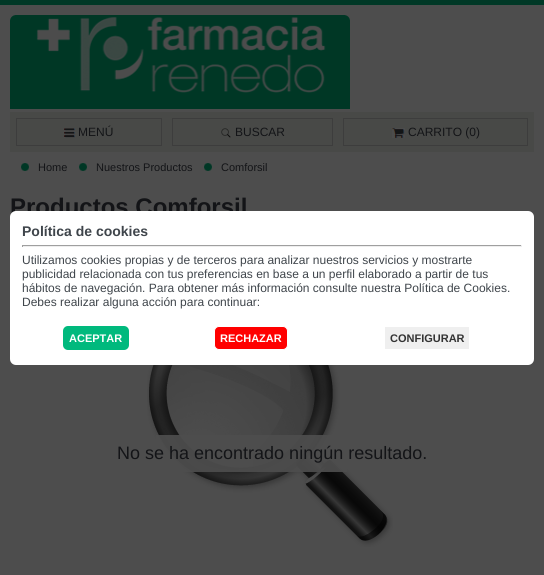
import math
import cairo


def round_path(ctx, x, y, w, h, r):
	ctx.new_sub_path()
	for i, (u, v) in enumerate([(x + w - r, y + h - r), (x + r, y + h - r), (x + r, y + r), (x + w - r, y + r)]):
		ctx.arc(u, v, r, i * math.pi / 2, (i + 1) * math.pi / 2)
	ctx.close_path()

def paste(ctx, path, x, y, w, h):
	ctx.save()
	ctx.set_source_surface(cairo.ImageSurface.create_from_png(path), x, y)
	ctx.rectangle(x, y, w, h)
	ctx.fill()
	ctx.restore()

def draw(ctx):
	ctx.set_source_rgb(0.302, 0.302, 0.302)
	ctx.paint()
	ctx.set_source_rgb(0, 0.22, 0.149)
	ctx.rectangle(0, 0, 544, 5)
	ctx.fill()
	paste(ctx, 'media/1.png', 10, 15, 340, 94)
	ctx.set_source_rgb(0.282, 0.286, 0.278)
	ctx.rectangle(10, 112, 524, 40)
	ctx.fill()
	ctx.rectangle(16.5, 118.5, 145, 27)
	ctx.set_source_rgb(0.239, 0.239, 0.239)
	ctx.set_line_width(1)
	ctx.stroke()
	paste(ctx, 'media/2.png', 64, 128, 11, 10)
	ctx.select_font_face('Liberation Sans')
	ctx.set_font_size(12)
	ctx.set_source_rgb(0.075, 0.082, 0.09)
	ctx.move_to(78, 136)
	ctx.show_text('MENÚ')
	ctx.rectangle(172.5, 118.5, 160, 27)
	ctx.set_source_rgb(0.239, 0.239, 0.239)
	ctx.stroke()
	paste(ctx, 'media/3.png', 221, 128, 10, 10)
	ctx.set_source_rgb(0.075, 0.082, 0.09)
	ctx.move_to(235, 136)
	ctx.show_text('BUSCAR')
	ctx.rectangle(343.5, 118.5, 184, 27)
	ctx.set_source_rgb(0.239, 0.239, 0.239)
	ctx.stroke()
	paste(ctx, 'media/4.png', 392, 128, 13, 10)
	ctx.set_source_rgb(0.075, 0.082, 0.09)
	ctx.move_to(408, 136)
	ctx.show_text('CARRITO (0)')
	paste(ctx, 'media/5.png', 21, 163, 8, 8)
	ctx.set_font_size(11)
	ctx.move_to(38, 171)
	ctx.show_text('Home')
	paste(ctx, 'media/5.png', 79, 163, 8, 8)
	ctx.move_to(96, 171)
	ctx.show_text('Nuestros Productos')
	paste(ctx, 'media/5.png', 204, 163, 8, 8)
	ctx.move_to(221, 171)
	ctx.show_text('Comforsil')
	ctx.select_font_face('Liberation Sans', cairo.FONT_SLANT_NORMAL, cairo.FONT_WEIGHT_BOLD)
	ctx.set_font_size(24)
	ctx.move_to(10, 215)
	ctx.show_text('Productos Comforsil')
	paste(ctx, 'media/6.png', 147, 365, 246, 182)
	ctx.set_source_rgba(0.302, 0.302, 0.302, 0.92)
	ctx.rectangle(156, 435, 191, 37)
	ctx.fill()
	ctx.select_font_face('Liberation Sans')
	ctx.set_font_size(18)
	ctx.set_source_rgb(0.075, 0.082, 0.09)
	ctx.move_to(117, 459)
	ctx.show_text('No se ha encontrado ningún resultado.')
	ctx.set_source_rgb(1, 1, 1)
	round_path(ctx, 10, 211, 524, 154, 6)
	ctx.fill()
	ctx.select_font_face('Liberation Sans', cairo.FONT_SLANT_NORMAL, cairo.FONT_WEIGHT_BOLD)
	ctx.set_font_size(14)
	ctx.set_source_rgb(0.247, 0.271, 0.294)
	ctx.move_to(22, 236)
	ctx.show_text('Política de cookies')
	ctx.set_source_rgb(0.624, 0.624, 0.624)
	ctx.rectangle(22, 245, 500, 1)
	ctx.fill()
	ctx.set_source_rgb(0.933, 0.933, 0.933)
	ctx.rectangle(521, 245, 1, 2)
	ctx.rectangle(22, 246, 500, 1)
	ctx.fill()
	ctx.set_source_rgb(0.624, 0.624, 0.624)
	ctx.rectangle(22, 245, 1, 2)
	ctx.fill()
	ctx.select_font_face('Liberation Sans')
	ctx.set_font_size(12)
	ctx.set_source_rgb(0.247, 0.271, 0.294)
	for x, y, s in [
		(22, 264, 'Utilizamos cookies propias y de terceros para analizar nuestros servicios y mostrarte'),
		(22, 278, 'publicidad relacionada con tus preferencias en base a un perfil elaborado a partir de tus'),
		(22, 292, 'hábitos de navegación. Para obtener más información consulte nuestra Política de Cookies.'),
		(22, 306, 'Debes realizar alguna acción para continuar:'),
	]:
		ctx.move_to(x, y)
		ctx.show_text(s)
	ctx.set_source_rgb(0, 0.725, 0.49)
	round_path(ctx, 63, 326, 66, 24, 5)
	ctx.fill()
	ctx.select_font_face('Liberation Sans', cairo.FONT_SLANT_NORMAL, cairo.FONT_WEIGHT_BOLD)
	ctx.set_font_size(11)
	ctx.set_source_rgb(1, 1, 1)
	ctx.move_to(69, 342)
	ctx.show_text('ACEPTAR')
	ctx.set_source_rgb(1, 0, 0)
	round_path(ctx, 214.5, 326.5, 73, 23, 4.5)
	ctx.fill_preserve()
	ctx.set_source_rgb(1, 1, 1)
	ctx.stroke()
	ctx.move_to(220, 342)
	ctx.show_text('RECHAZAR')
	ctx.set_source_rgb(0.937, 0.937, 0.937)
	ctx.rectangle(385, 327, 84, 22)
	ctx.fill()
	ctx.set_source_rgb(0.2, 0.2, 0.2)
	ctx.move_to(390, 342)
	ctx.show_text('CONFIGURAR')


surface = cairo.ImageSurface(cairo.FORMAT_RGB24, 544, 575)
ctx = cairo.Context(surface)
options = cairo.FontOptions()
options.set_hint_metrics(cairo.HINT_METRICS_OFF)
options.set_hint_style(cairo.HINT_STYLE_NONE)
ctx.set_font_options(options)
ctx.set_miter_limit(4)
draw(ctx)
surface.write_to_png('image.png')
